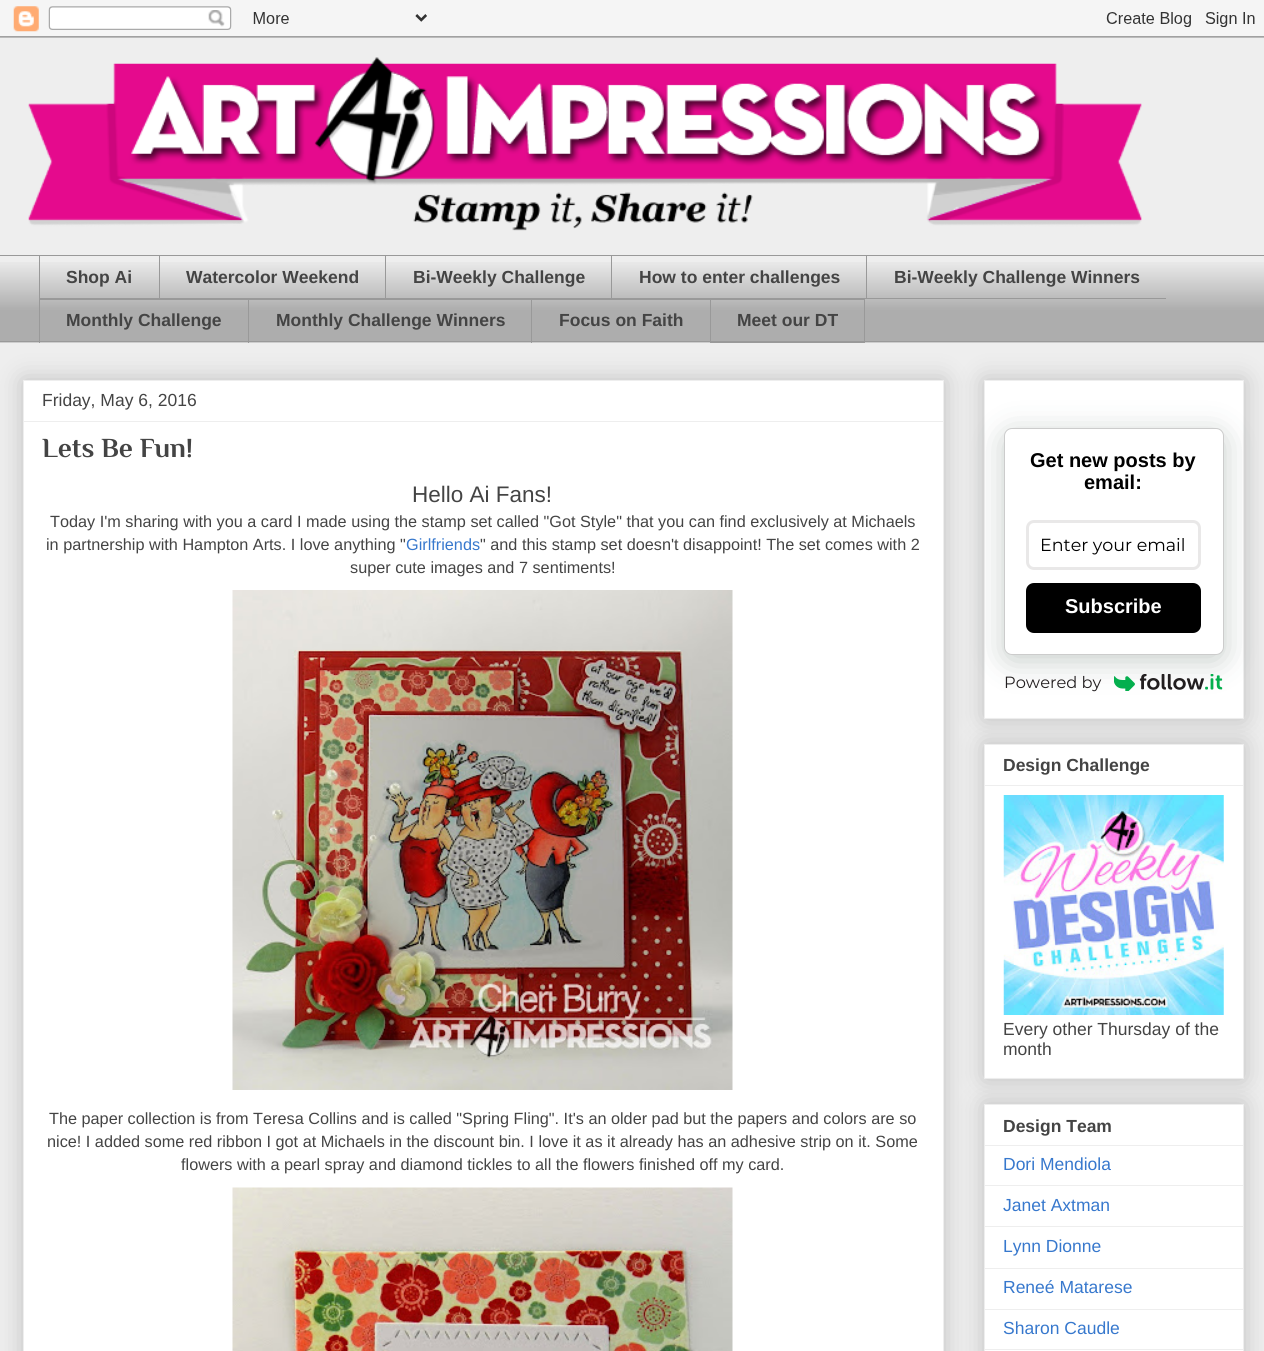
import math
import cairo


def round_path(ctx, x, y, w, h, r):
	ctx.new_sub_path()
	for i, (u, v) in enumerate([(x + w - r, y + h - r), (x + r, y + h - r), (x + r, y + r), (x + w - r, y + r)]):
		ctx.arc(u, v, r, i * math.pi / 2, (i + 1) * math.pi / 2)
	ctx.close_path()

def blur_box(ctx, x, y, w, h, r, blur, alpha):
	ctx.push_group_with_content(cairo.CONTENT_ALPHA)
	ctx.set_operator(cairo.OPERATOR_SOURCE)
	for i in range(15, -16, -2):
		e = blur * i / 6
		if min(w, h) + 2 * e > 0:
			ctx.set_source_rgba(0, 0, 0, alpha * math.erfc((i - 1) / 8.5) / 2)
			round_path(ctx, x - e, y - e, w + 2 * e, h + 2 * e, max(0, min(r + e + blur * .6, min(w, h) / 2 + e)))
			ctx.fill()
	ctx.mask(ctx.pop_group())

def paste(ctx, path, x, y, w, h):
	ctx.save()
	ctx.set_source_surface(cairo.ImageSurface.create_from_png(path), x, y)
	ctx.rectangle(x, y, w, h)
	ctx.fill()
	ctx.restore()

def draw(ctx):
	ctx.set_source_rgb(0.933, 0.933, 0.933)
	ctx.paint()
	paste(ctx, 'media/1.png', 0, 0, 1264, 38)
	paste(ctx, 'media/2.png', 28, 57, 1114, 174)
	paste(ctx, 'media/3.png', 0, 262, 1264, 81)
	ctx.set_source_rgb(0.6, 0.6, 0.6)
	ctx.rectangle(0, 255, 1264, 1)
	ctx.rectangle(39, 298, 1127, 1)
	ctx.rectangle(39, 255, 1, 44)
	ctx.fill()
	ctx.select_font_face('Liberation Sans', cairo.FONT_SLANT_NORMAL, cairo.FONT_WEIGHT_BOLD)
	ctx.set_font_size(17.5)
	ctx.set_source_rgb(0.267, 0.267, 0.267)
	ctx.move_to(66, 283)
	ctx.show_text('Shop Ai')
	ctx.set_source_rgb(0.6, 0.6, 0.6)
	ctx.rectangle(159, 255, 1, 44)
	ctx.fill()
	ctx.set_source_rgb(0.267, 0.267, 0.267)
	ctx.move_to(186, 283)
	ctx.show_text('Watercolor Weekend')
	ctx.set_source_rgb(0.6, 0.6, 0.6)
	ctx.rectangle(385, 255, 1, 44)
	ctx.fill()
	ctx.set_source_rgb(0.267, 0.267, 0.267)
	ctx.move_to(413, 283)
	ctx.show_text('Bi-Weekly Challenge')
	ctx.set_source_rgb(0.6, 0.6, 0.6)
	ctx.rectangle(611, 255, 1, 44)
	ctx.fill()
	ctx.set_source_rgb(0.267, 0.267, 0.267)
	ctx.move_to(639, 283)
	ctx.show_text('How to enter challenges')
	ctx.set_source_rgb(0.6, 0.6, 0.6)
	ctx.rectangle(866, 255, 1, 44)
	ctx.fill()
	ctx.set_source_rgb(0.267, 0.267, 0.267)
	ctx.move_to(894, 283)
	ctx.show_text('Bi-Weekly Challenge Winners')
	ctx.set_source_rgb(0.6, 0.6, 0.6)
	ctx.rectangle(39, 299, 671, 1)
	ctx.fill()
	ctx.rectangle(39, 299, 1, 44)
	ctx.fill()
	ctx.set_source_rgb(0.267, 0.267, 0.267)
	ctx.move_to(66, 326)
	ctx.show_text('Monthly Challenge')
	ctx.set_source_rgb(0.6, 0.6, 0.6)
	ctx.rectangle(248, 299, 1, 44)
	ctx.fill()
	ctx.set_source_rgb(0.267, 0.267, 0.267)
	ctx.move_to(276, 326)
	ctx.show_text('Monthly Challenge Winners')
	ctx.set_source_rgb(0.6, 0.6, 0.6)
	ctx.rectangle(531, 299, 1, 44)
	ctx.fill()
	ctx.set_source_rgb(0.267, 0.267, 0.267)
	ctx.move_to(559, 326)
	ctx.show_text('Focus on Faith')
	ctx.rectangle(710.5, 299.5, 154, 43)
	ctx.set_source_rgb(0.6, 0.6, 0.6)
	ctx.set_line_width(1)
	ctx.stroke()
	ctx.set_source_rgb(0.267, 0.267, 0.267)
	ctx.move_to(737, 326)
	ctx.show_text('Meet our DT')
	ctx.set_source_rgb(0.6, 0.6, 0.6)
	ctx.rectangle(0, 341, 1264, 1)
	ctx.fill()
	ctx.set_source_rgb(0, 0, 0)
	blur_box(ctx, 23, 380, 921, 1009, 0, 12.5, 0.2)
	ctx.set_source_rgb(1, 1, 1)
	ctx.rectangle(23.5, 380.5, 920, 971)
	ctx.fill_preserve()
	ctx.set_source_rgb(0.933, 0.933, 0.933)
	ctx.stroke()
	ctx.select_font_face('Liberation Sans')
	ctx.set_source_rgb(0.267, 0.267, 0.267)
	ctx.move_to(42, 406)
	ctx.show_text('Friday, May 6, 2016')
	ctx.set_source_rgb(0.933, 0.933, 0.933)
	ctx.rectangle(24, 421, 919, 1)
	ctx.fill()
	ctx.select_font_face('Philosopher', cairo.FONT_SLANT_NORMAL, cairo.FONT_WEIGHT_BOLD)
	ctx.set_font_size(27.5)
	ctx.set_source_rgb(0.267, 0.267, 0.267)
	ctx.move_to(42, 457)
	ctx.show_text('Lets Be Fun!')
	ctx.select_font_face('Liberation Sans')
	ctx.set_font_size(22.5)
	ctx.move_to(412, 502)
	ctx.show_text('Hello Ai Fans!')
	ctx.set_font_size(16.25)
	ctx.move_to(50, 527)
	ctx.show_text('Today I\'m sharing with you a card I made using the stamp set called "Got Style" that you can find exclusively at Michaels')
	ctx.move_to(46, 550)
	ctx.show_text('in partnership with Hampton Arts. I love anything "')
	ctx.set_source_rgb(0.216, 0.471, 0.804)
	ctx.move_to(406, 550)
	ctx.show_text('Girlfriends')
	ctx.set_source_rgb(0.267, 0.267, 0.267)
	ctx.move_to(480, 550)
	ctx.show_text('" and this stamp set doesn\'t disappoint! The set comes with 2')
	ctx.move_to(350, 573)
	ctx.show_text('super cute images and 7 sentiments!')
	paste(ctx, 'media/4.png', 232, 590, 501, 500)
	for x, y, s in [
		(49, 1124, 'The paper collection is from Teresa Collins and is called "Spring Fling". It\'s an older pad but the papers and colors are so'),
		(47, 1147, 'nice! I added some red ribbon I got at Michaels in the discount bin. I love it as it already has an adhesive strip on it. Some'),
		(181, 1170, 'flowers with a pearl spray and diamond tickles to all the flowers finished off my card.'),
	]:
		ctx.move_to(x, y)
		ctx.show_text(s)
	paste(ctx, 'media/5.png', 232, 1187, 501, 164)
	ctx.set_source_rgb(0, 0, 0)
	blur_box(ctx, 984, 380, 260, 339, 0, 12.5, 0.2)
	ctx.set_source_rgb(1, 1, 1)
	ctx.rectangle(984.5, 380.5, 259, 338)
	ctx.fill_preserve()
	ctx.set_source_rgb(0.933, 0.933, 0.933)
	ctx.stroke()
	ctx.set_source_rgb(0.133, 0.235, 0.184)
	blur_box(ctx, 1004, 434, 220, 227, 8, 15.5, 0.25)
	ctx.set_source_rgb(1, 1, 1)
	round_path(ctx, 1004.5, 428.5, 219, 226, 7.5)
	ctx.fill_preserve()
	ctx.set_source_rgb(0.8, 0.8, 0.8)
	ctx.stroke()
	ctx.select_font_face('Liberation Sans', cairo.FONT_SLANT_NORMAL, cairo.FONT_WEIGHT_BOLD)
	ctx.set_font_size(20)
	ctx.set_source_rgb(0, 0, 0)
	ctx.move_to(1030, 467)
	ctx.show_text('Get new posts by')
	ctx.move_to(1084, 489)
	ctx.show_text('email:')
	round_path(ctx, 1027.5, 521.5, 172, 47, 6.5)
	ctx.set_source_rgb(0.914, 0.91, 0.91)
	ctx.set_line_width(3)
	ctx.stroke()
	ctx.select_font_face('Montserrat')
	ctx.set_font_size(17.5)
	ctx.set_source_rgb(0, 0, 0)
	ctx.move_to(1040, 551)
	ctx.show_text('Enter your email')
	round_path(ctx, 1026, 583, 175, 50, 8)
	ctx.fill()
	ctx.select_font_face('Liberation Sans', cairo.FONT_SLANT_NORMAL, cairo.FONT_WEIGHT_BOLD)
	ctx.set_font_size(20)
	ctx.set_source_rgb(1, 1, 1)
	ctx.move_to(1065, 613)
	ctx.show_text('Subscribe')
	ctx.select_font_face('Montserrat')
	ctx.set_font_size(16.25)
	ctx.set_source_rgb(0.137, 0.122, 0.125)
	ctx.move_to(1004, 688)
	ctx.show_text('Powered by')
	paste(ctx, 'media/6.png', 1114, 674, 109, 17)
	ctx.set_source_rgb(0, 0, 0)
	blur_box(ctx, 984, 744, 260, 335, 0, 12.5, 0.2)
	ctx.set_source_rgb(1, 1, 1)
	ctx.rectangle(984.5, 744.5, 259, 334)
	ctx.fill_preserve()
	ctx.set_source_rgb(0.933, 0.933, 0.933)
	ctx.set_line_width(1)
	ctx.stroke()
	ctx.select_font_face('Liberation Sans', cairo.FONT_SLANT_NORMAL, cairo.FONT_WEIGHT_BOLD)
	ctx.set_font_size(17.5)
	ctx.set_source_rgb(0.267, 0.267, 0.267)
	ctx.move_to(1003, 771)
	ctx.show_text('Design Challenge')
	ctx.set_source_rgb(0.933, 0.933, 0.933)
	ctx.rectangle(985, 785, 258, 1)
	ctx.fill()
	paste(ctx, 'media/7.png', 1003, 795, 221, 220)
	ctx.select_font_face('Liberation Sans')
	ctx.set_source_rgb(0.267, 0.267, 0.267)
	ctx.move_to(1003, 1035)
	ctx.show_text('Every other Thursday of the')
	ctx.move_to(1003, 1055)
	ctx.show_text('month')
	ctx.set_source_rgb(0, 0, 0)
	blur_box(ctx, 984, 1104, 260, 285, 0, 12.5, 0.2)
	ctx.set_source_rgb(1, 1, 1)
	ctx.rectangle(984.5, 1104.5, 259, 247)
	ctx.fill_preserve()
	ctx.set_source_rgb(0.933, 0.933, 0.933)
	ctx.stroke()
	ctx.select_font_face('Liberation Sans', cairo.FONT_SLANT_NORMAL, cairo.FONT_WEIGHT_BOLD)
	ctx.set_source_rgb(0.267, 0.267, 0.267)
	ctx.move_to(1003, 1132)
	ctx.show_text('Design Team')
	ctx.set_source_rgb(0.933, 0.933, 0.933)
	ctx.rectangle(985, 1145, 258, 1)
	ctx.fill()
	ctx.select_font_face('Liberation Sans')
	ctx.set_source_rgb(0.216, 0.471, 0.804)
	ctx.move_to(1003, 1170)
	ctx.show_text('Dori Mendiola')
	ctx.set_source_rgb(0.933, 0.933, 0.933)
	ctx.rectangle(985, 1185, 258, 1)
	ctx.fill()
	ctx.set_source_rgb(0.216, 0.471, 0.804)
	ctx.move_to(1003, 1211)
	ctx.show_text('Janet Axtman')
	ctx.set_source_rgb(0.933, 0.933, 0.933)
	ctx.rectangle(985, 1226, 258, 1)
	ctx.fill()
	ctx.set_source_rgb(0.216, 0.471, 0.804)
	ctx.move_to(1003, 1252)
	ctx.show_text('Lynn Dionne')
	ctx.set_source_rgb(0.933, 0.933, 0.933)
	ctx.rectangle(985, 1268, 258, 1)
	ctx.fill()
	ctx.set_source_rgb(0.216, 0.471, 0.804)
	ctx.move_to(1003, 1293)
	ctx.show_text('Reneé Matarese')
	ctx.set_source_rgb(0.933, 0.933, 0.933)
	ctx.rectangle(985, 1309, 258, 1)
	ctx.fill()
	ctx.set_source_rgb(0.216, 0.471, 0.804)
	ctx.move_to(1003, 1334)
	ctx.show_text('Sharon Caudle')
	ctx.set_source_rgb(0.933, 0.933, 0.933)
	ctx.rectangle(985, 1349, 258, 1)
	ctx.fill()


surface = cairo.ImageSurface(cairo.FORMAT_RGB24, 1264, 1351)
ctx = cairo.Context(surface)
options = cairo.FontOptions()
options.set_hint_metrics(cairo.HINT_METRICS_OFF)
options.set_hint_style(cairo.HINT_STYLE_NONE)
ctx.set_font_options(options)
ctx.set_miter_limit(4)
draw(ctx)
surface.write_to_png('image.png')
